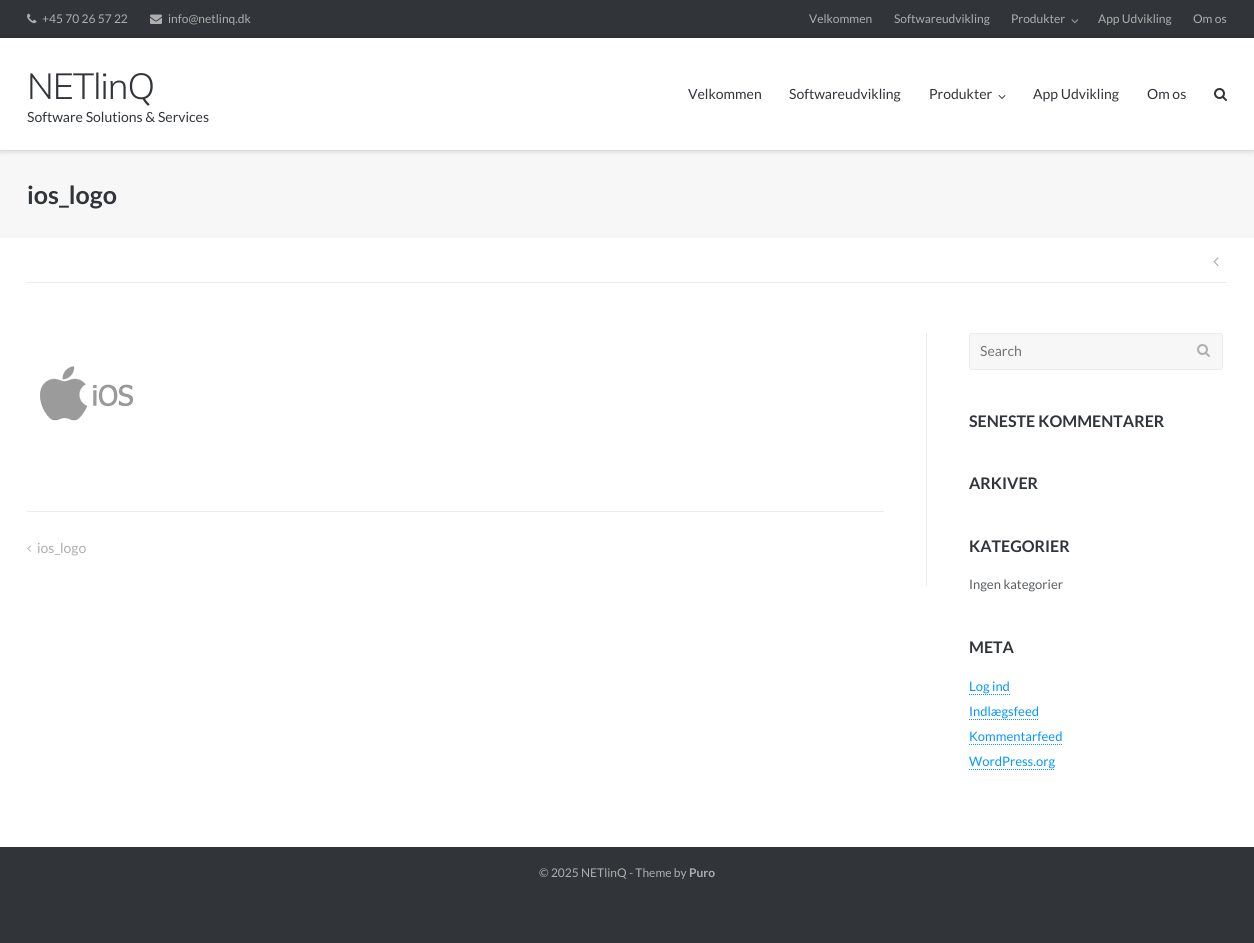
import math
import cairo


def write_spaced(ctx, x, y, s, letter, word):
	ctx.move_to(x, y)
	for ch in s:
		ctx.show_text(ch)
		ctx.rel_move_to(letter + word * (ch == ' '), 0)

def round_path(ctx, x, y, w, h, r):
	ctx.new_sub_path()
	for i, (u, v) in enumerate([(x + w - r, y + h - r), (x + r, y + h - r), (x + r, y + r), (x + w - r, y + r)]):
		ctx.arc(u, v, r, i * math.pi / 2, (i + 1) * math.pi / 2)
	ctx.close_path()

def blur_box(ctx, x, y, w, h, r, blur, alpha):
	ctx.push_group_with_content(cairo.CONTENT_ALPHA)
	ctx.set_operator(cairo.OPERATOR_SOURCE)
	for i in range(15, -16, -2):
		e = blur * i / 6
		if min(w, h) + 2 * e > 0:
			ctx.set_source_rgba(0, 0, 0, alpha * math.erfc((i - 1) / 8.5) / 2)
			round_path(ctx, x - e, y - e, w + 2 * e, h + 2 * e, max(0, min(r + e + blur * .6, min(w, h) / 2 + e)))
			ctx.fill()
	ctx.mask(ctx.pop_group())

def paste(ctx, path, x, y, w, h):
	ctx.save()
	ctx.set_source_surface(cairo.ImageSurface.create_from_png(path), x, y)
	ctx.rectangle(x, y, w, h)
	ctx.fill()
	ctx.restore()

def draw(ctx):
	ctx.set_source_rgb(0.192, 0.208, 0.224)
	ctx.paint()
	paste(ctx, 'media/1.png', 27, 13, 10, 11)
	ctx.select_font_face('Lato')
	ctx.set_font_size(12)
	ctx.set_source_rgb(0.675, 0.682, 0.686)
	ctx.move_to(42, 23)
	ctx.show_text('+45 70 26 57 22')
	paste(ctx, 'media/2.png', 150, 14, 12, 10)
	for x, y, s in [
		(168, 23, 'info@netlinq.dk'),
		(809, 23, 'Velkommen'),
		(894, 23, 'Softwareudvikling'),
		(1011, 23, 'Produkter'),
	]:
		ctx.move_to(x, y)
		ctx.show_text(s)
	paste(ctx, 'media/3.png', 1071, 19, 8, 4)
	ctx.move_to(1098, 23)
	ctx.show_text('App Udvikling')
	ctx.move_to(1193, 23)
	ctx.show_text('Om os')
	ctx.set_source_rgb(0.965, 0.965, 0.969)
	ctx.rectangle(0, 150, 1254, 88)
	ctx.fill()
	ctx.set_source_rgb(0, 0, 0)
	blur_box(ctx, 0, 38, 1254, 112, 0, 3, 0.25)
	ctx.set_source_rgb(1, 1, 1)
	ctx.rectangle(0, 38, 1254, 112)
	ctx.fill()
	ctx.select_font_face('Muli Light')
	ctx.set_font_size(36)
	ctx.set_source_rgb(0.192, 0.208, 0.224)
	write_spaced(ctx, 27, 99, 'NETlinQ', -1, 0)
	ctx.select_font_face('Lato')
	ctx.set_font_size(14)
	for x, y, s in [
		(27, 122, 'Software Solutions & Services'),
		(688, 99, 'Velkommen'),
		(789, 99, 'Softwareudvikling'),
		(929, 99, 'Produkter'),
	]:
		ctx.move_to(x, y)
		ctx.show_text(s)
	paste(ctx, 'media/4.png', 998, 95, 8, 4)
	ctx.move_to(1033, 99)
	ctx.show_text('App Udvikling')
	ctx.move_to(1147, 99)
	ctx.show_text('Om os')
	paste(ctx, 'media/5.png', 1214, 88, 13, 13)
	ctx.set_source_rgb(1, 1, 1)
	ctx.rectangle(0, 238, 1254, 609)
	ctx.fill()
	ctx.select_font_face('Lato', cairo.FONT_SLANT_NORMAL, cairo.FONT_WEIGHT_BOLD)
	ctx.set_font_size(25)
	ctx.set_source_rgb(0.192, 0.208, 0.224)
	ctx.move_to(27, 204)
	ctx.show_text('ios_logo')
	ctx.set_source_rgb(0.918, 0.918, 0.922)
	ctx.rectangle(27, 282, 1200, 1)
	ctx.fill()
	paste(ctx, 'media/6.png', 1213, 257, 6, 9)
	ctx.rectangle(926, 333, 1, 253)
	ctx.fill()
	paste(ctx, 'media/7.png', 40, 366, 93, 55)
	ctx.rectangle(27, 511, 857, 1)
	ctx.fill()
	paste(ctx, 'media/8.png', 27, 545, 4, 7)
	ctx.select_font_face('Lato')
	ctx.set_font_size(14)
	ctx.set_source_rgb(0.675, 0.682, 0.686)
	ctx.move_to(37, 553)
	ctx.show_text('ios_logo')
	ctx.set_source_rgb(0.965, 0.965, 0.969)
	round_path(ctx, 969.5, 333.5, 253, 36, 2.5)
	ctx.fill_preserve()
	ctx.set_source_rgb(0.918, 0.918, 0.922)
	ctx.set_line_width(1)
	ctx.stroke()
	ctx.set_source_rgb(0.459, 0.459, 0.459)
	ctx.move_to(980, 356)
	ctx.show_text('Search')
	paste(ctx, 'media/9.png', 1197, 344, 13, 13)
	ctx.select_font_face('Lato', cairo.FONT_SLANT_NORMAL, cairo.FONT_WEIGHT_BOLD)
	ctx.set_font_size(16)
	ctx.set_source_rgb(0.192, 0.208, 0.224)
	for x, y, s in [
		(969, 427, 'SENESTE KOMMENTARER'),
		(969, 489, 'ARKIVER'),
		(969, 552, 'KATEGORIER'),
	]:
		ctx.move_to(x, y)
		ctx.show_text(s)
	ctx.select_font_face('Lato')
	ctx.set_font_size(13)
	ctx.set_source_rgb(0.353, 0.365, 0.376)
	ctx.move_to(969, 589)
	ctx.show_text('Ingen kategorier')
	ctx.select_font_face('Lato', cairo.FONT_SLANT_NORMAL, cairo.FONT_WEIGHT_BOLD)
	ctx.set_font_size(16)
	ctx.set_source_rgb(0.192, 0.208, 0.224)
	ctx.move_to(969, 653)
	ctx.show_text('META')
	ctx.select_font_face('Lato')
	ctx.set_font_size(13)
	ctx.set_source_rgb(0.031, 0.588, 0.996)
	ctx.move_to(969, 691)
	ctx.show_text('Log ind')
	ctx.new_path()
	ctx.move_to(969, 694.5)
	ctx.line_to(1010, 694.5)
	ctx.set_dash([1, 1])
	ctx.stroke()
	ctx.move_to(969, 716)
	ctx.show_text('Indlægsfeed')
	ctx.new_path()
	ctx.move_to(969, 719.5)
	ctx.line_to(1039, 719.5)
	ctx.stroke()
	ctx.move_to(969, 741)
	ctx.show_text('Kommentarfeed')
	ctx.new_path()
	ctx.move_to(969, 744.5)
	ctx.line_to(1062, 744.5)
	ctx.stroke()
	ctx.move_to(969, 766)
	ctx.show_text('WordPress.org')
	ctx.new_path()
	ctx.move_to(969, 769.5)
	ctx.line_to(1055, 769.5)
	ctx.stroke()
	ctx.set_font_size(12)
	ctx.set_source_rgb(0.675, 0.682, 0.686)
	ctx.move_to(539, 877)
	ctx.show_text('© 2025 NETlinQ - Theme by')
	ctx.select_font_face('Lato', cairo.FONT_SLANT_NORMAL, cairo.FONT_WEIGHT_BOLD)
	ctx.move_to(689, 877)
	ctx.show_text('Puro')


surface = cairo.ImageSurface(cairo.FORMAT_RGB24, 1254, 943)
ctx = cairo.Context(surface)
options = cairo.FontOptions()
options.set_hint_metrics(cairo.HINT_METRICS_OFF)
options.set_hint_style(cairo.HINT_STYLE_NONE)
ctx.set_font_options(options)
ctx.set_miter_limit(4)
draw(ctx)
surface.write_to_png('image.png')
